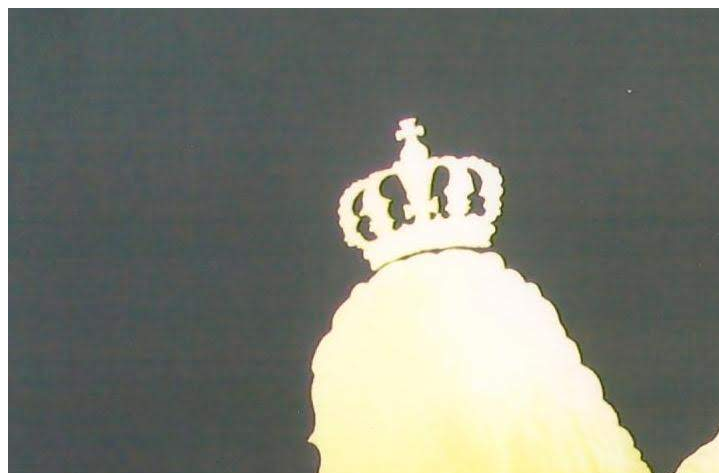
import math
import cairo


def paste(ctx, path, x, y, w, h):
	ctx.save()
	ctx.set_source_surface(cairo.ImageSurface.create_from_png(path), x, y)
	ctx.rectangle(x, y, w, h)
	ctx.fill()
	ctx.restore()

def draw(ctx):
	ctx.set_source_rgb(1, 1, 1)
	ctx.paint()
	paste(ctx, 'media/1.png', 8, 8, 711, 465)


surface = cairo.ImageSurface(cairo.FORMAT_RGB24, 719, 473)
ctx = cairo.Context(surface)
options = cairo.FontOptions()
options.set_hint_metrics(cairo.HINT_METRICS_OFF)
options.set_hint_style(cairo.HINT_STYLE_NONE)
ctx.set_font_options(options)
ctx.set_miter_limit(4)
draw(ctx)
surface.write_to_png('image.png')
